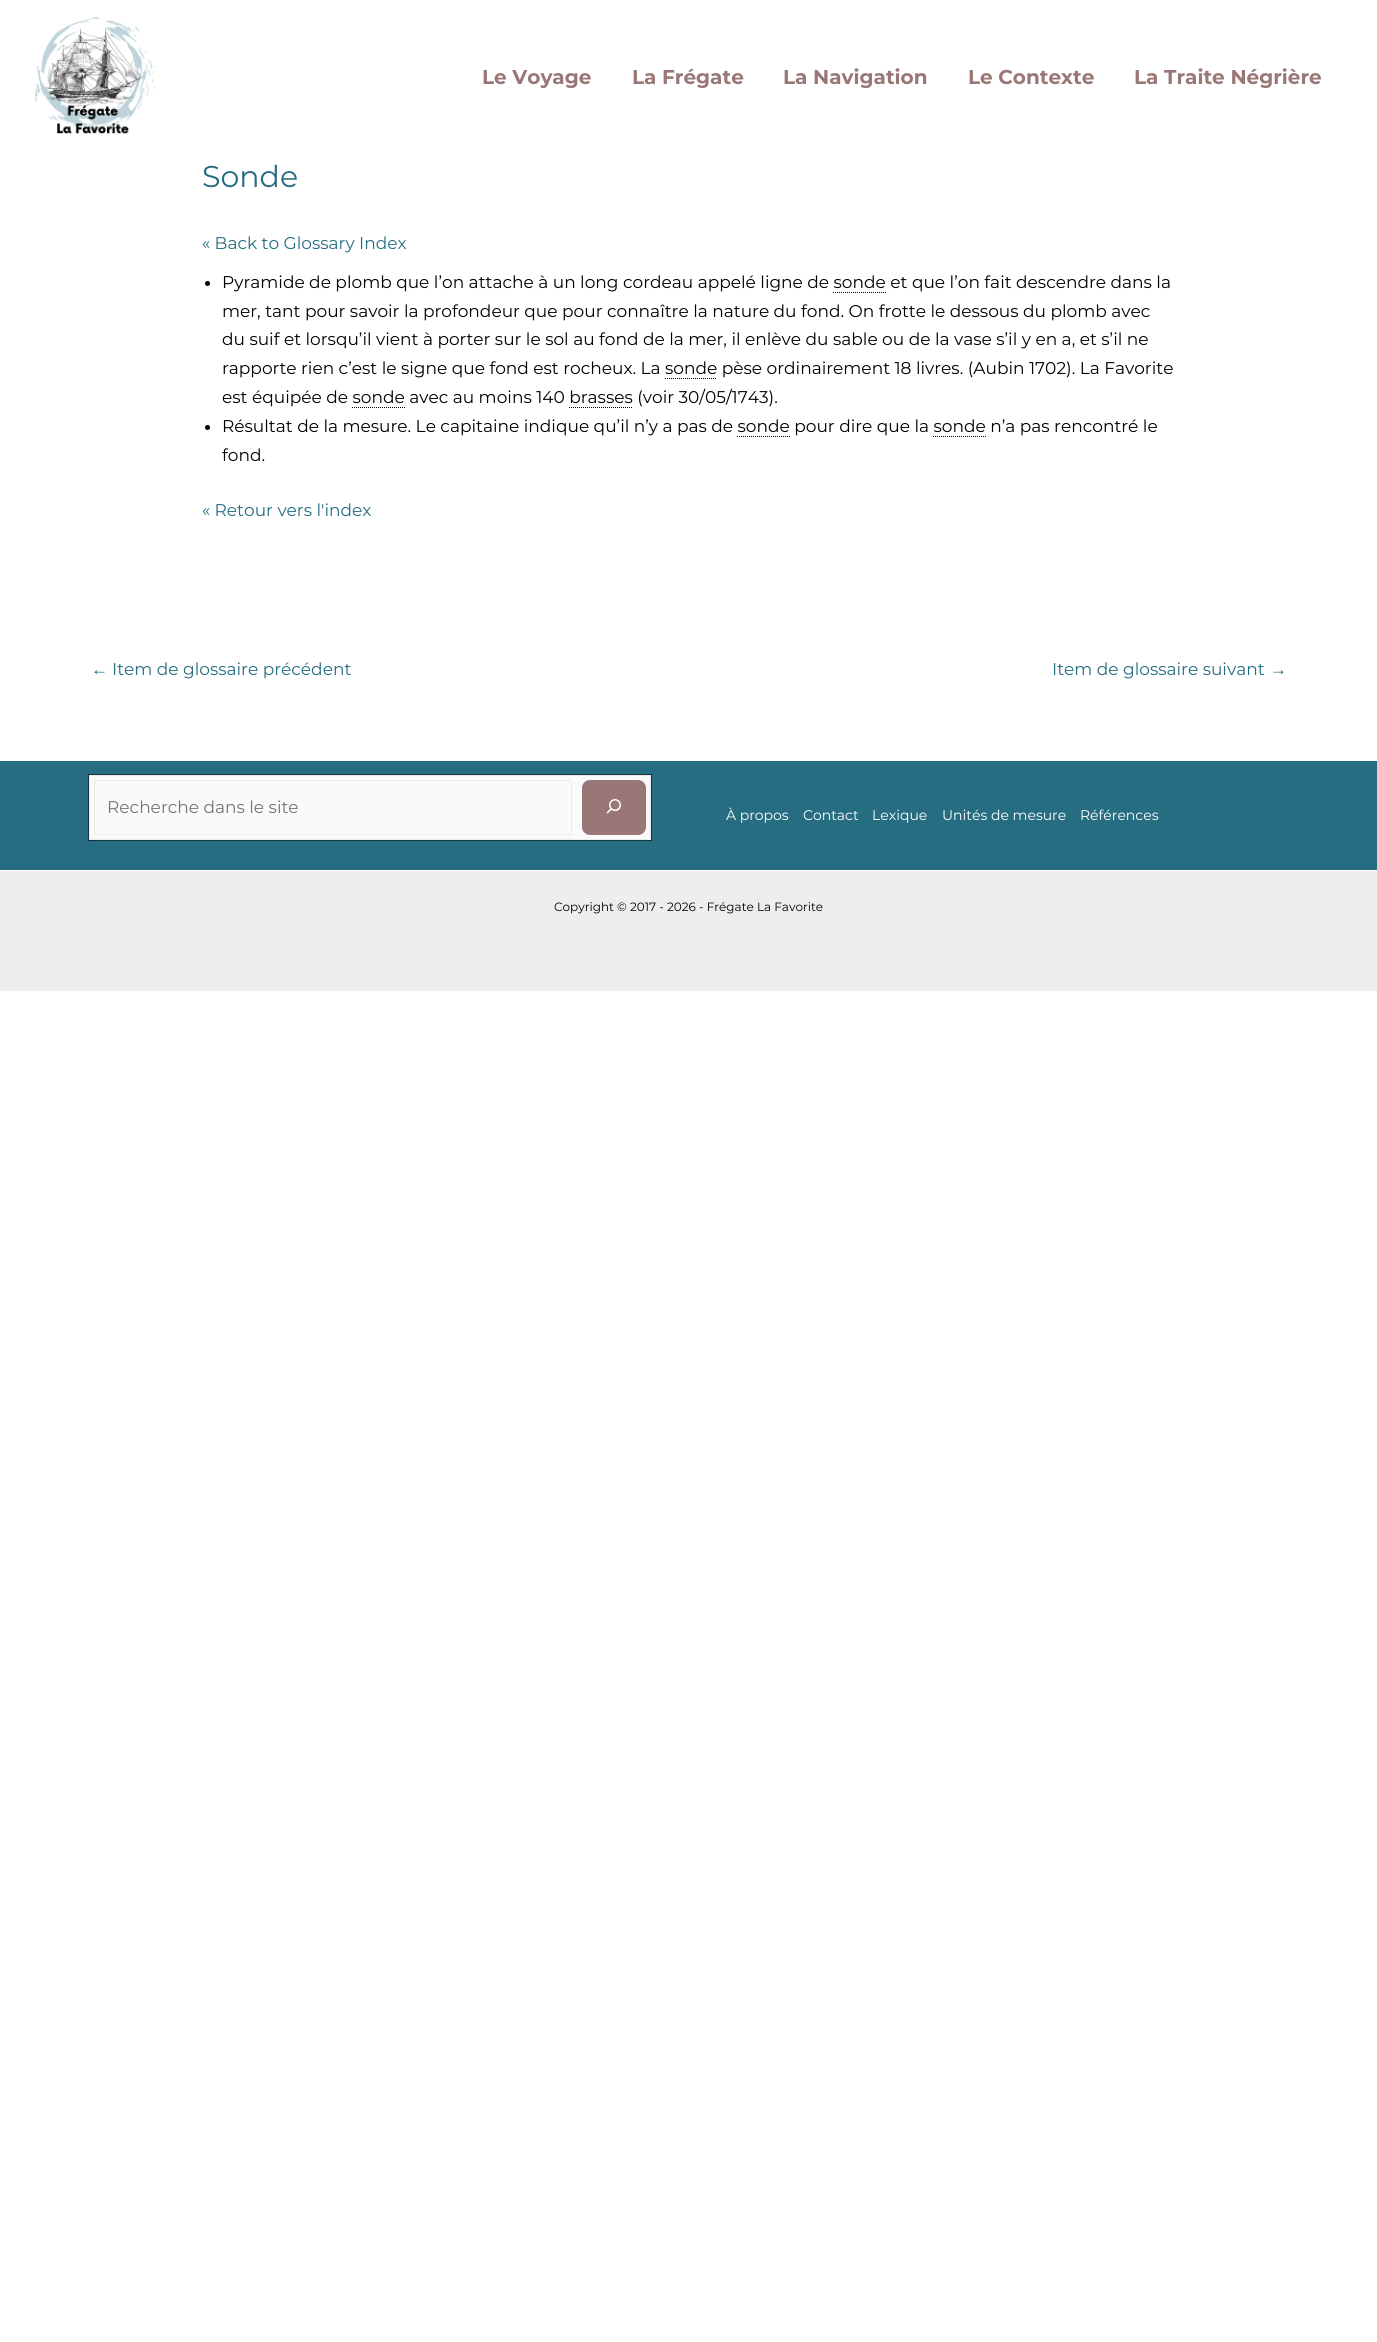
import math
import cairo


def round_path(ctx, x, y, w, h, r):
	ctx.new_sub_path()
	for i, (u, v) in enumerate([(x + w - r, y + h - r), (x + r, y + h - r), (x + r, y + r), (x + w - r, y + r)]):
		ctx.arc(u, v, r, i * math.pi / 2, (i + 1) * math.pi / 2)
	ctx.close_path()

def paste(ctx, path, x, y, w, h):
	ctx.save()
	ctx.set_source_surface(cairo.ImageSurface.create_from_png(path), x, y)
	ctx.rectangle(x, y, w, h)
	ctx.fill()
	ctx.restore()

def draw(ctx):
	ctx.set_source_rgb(1, 1, 1)
	ctx.paint()
	paste(ctx, 'media/1.png', 35, 17, 120, 117)
	ctx.select_font_face('Montserrat', cairo.FONT_SLANT_NORMAL, cairo.FONT_WEIGHT_BOLD)
	ctx.set_font_size(20)
	ctx.set_source_rgb(0.596, 0.467, 0.463)
	for x, y, s in [
		(482, 84, 'Le Voyage'),
		(632, 84, 'La Frégate'),
		(783, 84, 'La Navigation'),
		(968, 84, 'Le Contexte'),
		(1134, 84, 'La Traite Négrière'),
	]:
		ctx.move_to(x, y)
		ctx.show_text(s)
	ctx.select_font_face('Montserrat')
	ctx.set_font_size(30)
	ctx.set_source_rgb(0.149, 0.427, 0.51)
	ctx.move_to(202, 187)
	ctx.show_text('Sonde')
	ctx.set_font_size(17)
	ctx.move_to(202, 249)
	ctx.show_text('« Back to Glossary Index')
	ctx.set_source_rgb(0, 0, 0)
	ctx.new_path()
	ctx.arc(207.5, 283.5, 2.5, 0, 2 * math.pi)
	ctx.fill()
	ctx.move_to(222, 288)
	ctx.show_text('Pyramide de plomb que l’on attache à un long cordeau appelé ligne de sonde et que l’on fait descendre dans la')
	ctx.new_path()
	ctx.move_to(833, 292.5)
	ctx.line_to(886, 292.5)
	ctx.set_line_width(1)
	ctx.set_dash([1, 1])
	ctx.stroke()
	for x, y, s in [
		(222, 317, 'mer, tant pour savoir la profondeur que pour connaître la nature du fond. On frotte le dessous du plomb avec'),
		(222, 345, 'du suif et lorsqu’il vient à porter sur le sol au fond de la mer, il enlève du sable ou de la vase s’il y en a, et s’il ne'),
		(222, 374, 'rapporte rien c’est le signe que fond est rocheux. La sonde pèse ordinairement 18 livres. (Aubin 1702). La Favorite'),
	]:
		ctx.move_to(x, y)
		ctx.show_text(s)
	ctx.new_path()
	ctx.move_to(665, 378.5)
	ctx.line_to(717, 378.5)
	ctx.stroke()
	ctx.move_to(222, 403)
	ctx.show_text('est équipée de sonde avec au moins 140 brasses (voir 30/05/1743).')
	ctx.new_path()
	ctx.move_to(352, 407.5)
	ctx.line_to(405, 407.5)
	ctx.stroke()
	ctx.new_path()
	ctx.move_to(569, 407.5)
	ctx.line_to(633, 407.5)
	ctx.stroke()
	ctx.arc(207.5, 427.5, 2.5, 0, 2 * math.pi)
	ctx.fill()
	ctx.move_to(222, 432)
	ctx.show_text('Résultat de la mesure. Le capitaine indique qu’il n’y a pas de sonde pour dire que la sonde n’a pas rencontré le')
	ctx.new_path()
	ctx.move_to(737, 436.5)
	ctx.line_to(790, 436.5)
	ctx.stroke()
	ctx.new_path()
	ctx.move_to(933, 436.5)
	ctx.line_to(986, 436.5)
	ctx.stroke()
	ctx.move_to(222, 461)
	ctx.show_text('fond.')
	ctx.set_source_rgb(0.149, 0.427, 0.51)
	ctx.move_to(202, 516)
	ctx.show_text('« Retour vers l\'index')
	ctx.select_font_face('Liberation Sans')
	ctx.move_to(91, 675)
	ctx.show_text('←')
	ctx.select_font_face('Montserrat')
	ctx.move_to(112, 675)
	ctx.show_text('Item de glossaire précédent')
	ctx.move_to(1052, 675)
	ctx.show_text('Item de glossaire suivant')
	ctx.select_font_face('Liberation Sans')
	ctx.move_to(1270, 675)
	ctx.show_text('→')
	ctx.rectangle(0, 761, 1377, 109)
	ctx.fill()
	ctx.set_source_rgb(0.98, 0.98, 0.98)
	ctx.rectangle(89.5, 775.5, 561, 64)
	ctx.fill_preserve()
	ctx.set_source_rgb(0.918, 0.918, 0.918)
	ctx.set_dash([])
	ctx.stroke()
	round_path(ctx, 94.5, 780.5, 477, 54, 1.5)
	ctx.stroke()
	ctx.select_font_face('Montserrat')
	ctx.set_source_rgb(0.459, 0.459, 0.459)
	ctx.move_to(107, 813)
	ctx.show_text('Recherche dans le site')
	ctx.set_source_rgb(0.596, 0.467, 0.463)
	round_path(ctx, 582, 780, 64, 55, 8)
	ctx.fill()
	ctx.new_path()
	ctx.move_to(88.5, 774.5)
	ctx.line_to(651.5, 774.5)
	ctx.line_to(651.5, 840.5)
	ctx.line_to(88.5, 840.5)
	ctx.close_path()
	ctx.set_source_rgb(0, 0, 0)
	ctx.set_dash([1, 1])
	ctx.stroke()
	paste(ctx, 'media/2.png', 606, 799, 16, 15)
	ctx.set_font_size(14)
	ctx.set_source_rgb(1, 1, 1)
	for x, y, s in [
		(726, 820, 'À propos'),
		(803, 820, 'Contact'),
		(872, 820, 'Lexique'),
		(942, 820, 'Unités de mesure'),
		(1080, 820, 'Références'),
	]:
		ctx.move_to(x, y)
		ctx.show_text(s)
	ctx.set_source_rgb(0.933, 0.933, 0.933)
	ctx.rectangle(0, 871, 1377, 120)
	ctx.fill()
	ctx.set_font_size(12)
	ctx.set_source_rgb(0, 0, 0)
	ctx.move_to(554, 911)
	ctx.show_text('Copyright © 2017 - 2026 - Frégate La Favorite')


surface = cairo.ImageSurface(cairo.FORMAT_RGB24, 1377, 2342)
ctx = cairo.Context(surface)
options = cairo.FontOptions()
options.set_hint_metrics(cairo.HINT_METRICS_OFF)
options.set_hint_style(cairo.HINT_STYLE_NONE)
ctx.set_font_options(options)
ctx.set_miter_limit(4)
draw(ctx)
surface.write_to_png('image.png')
